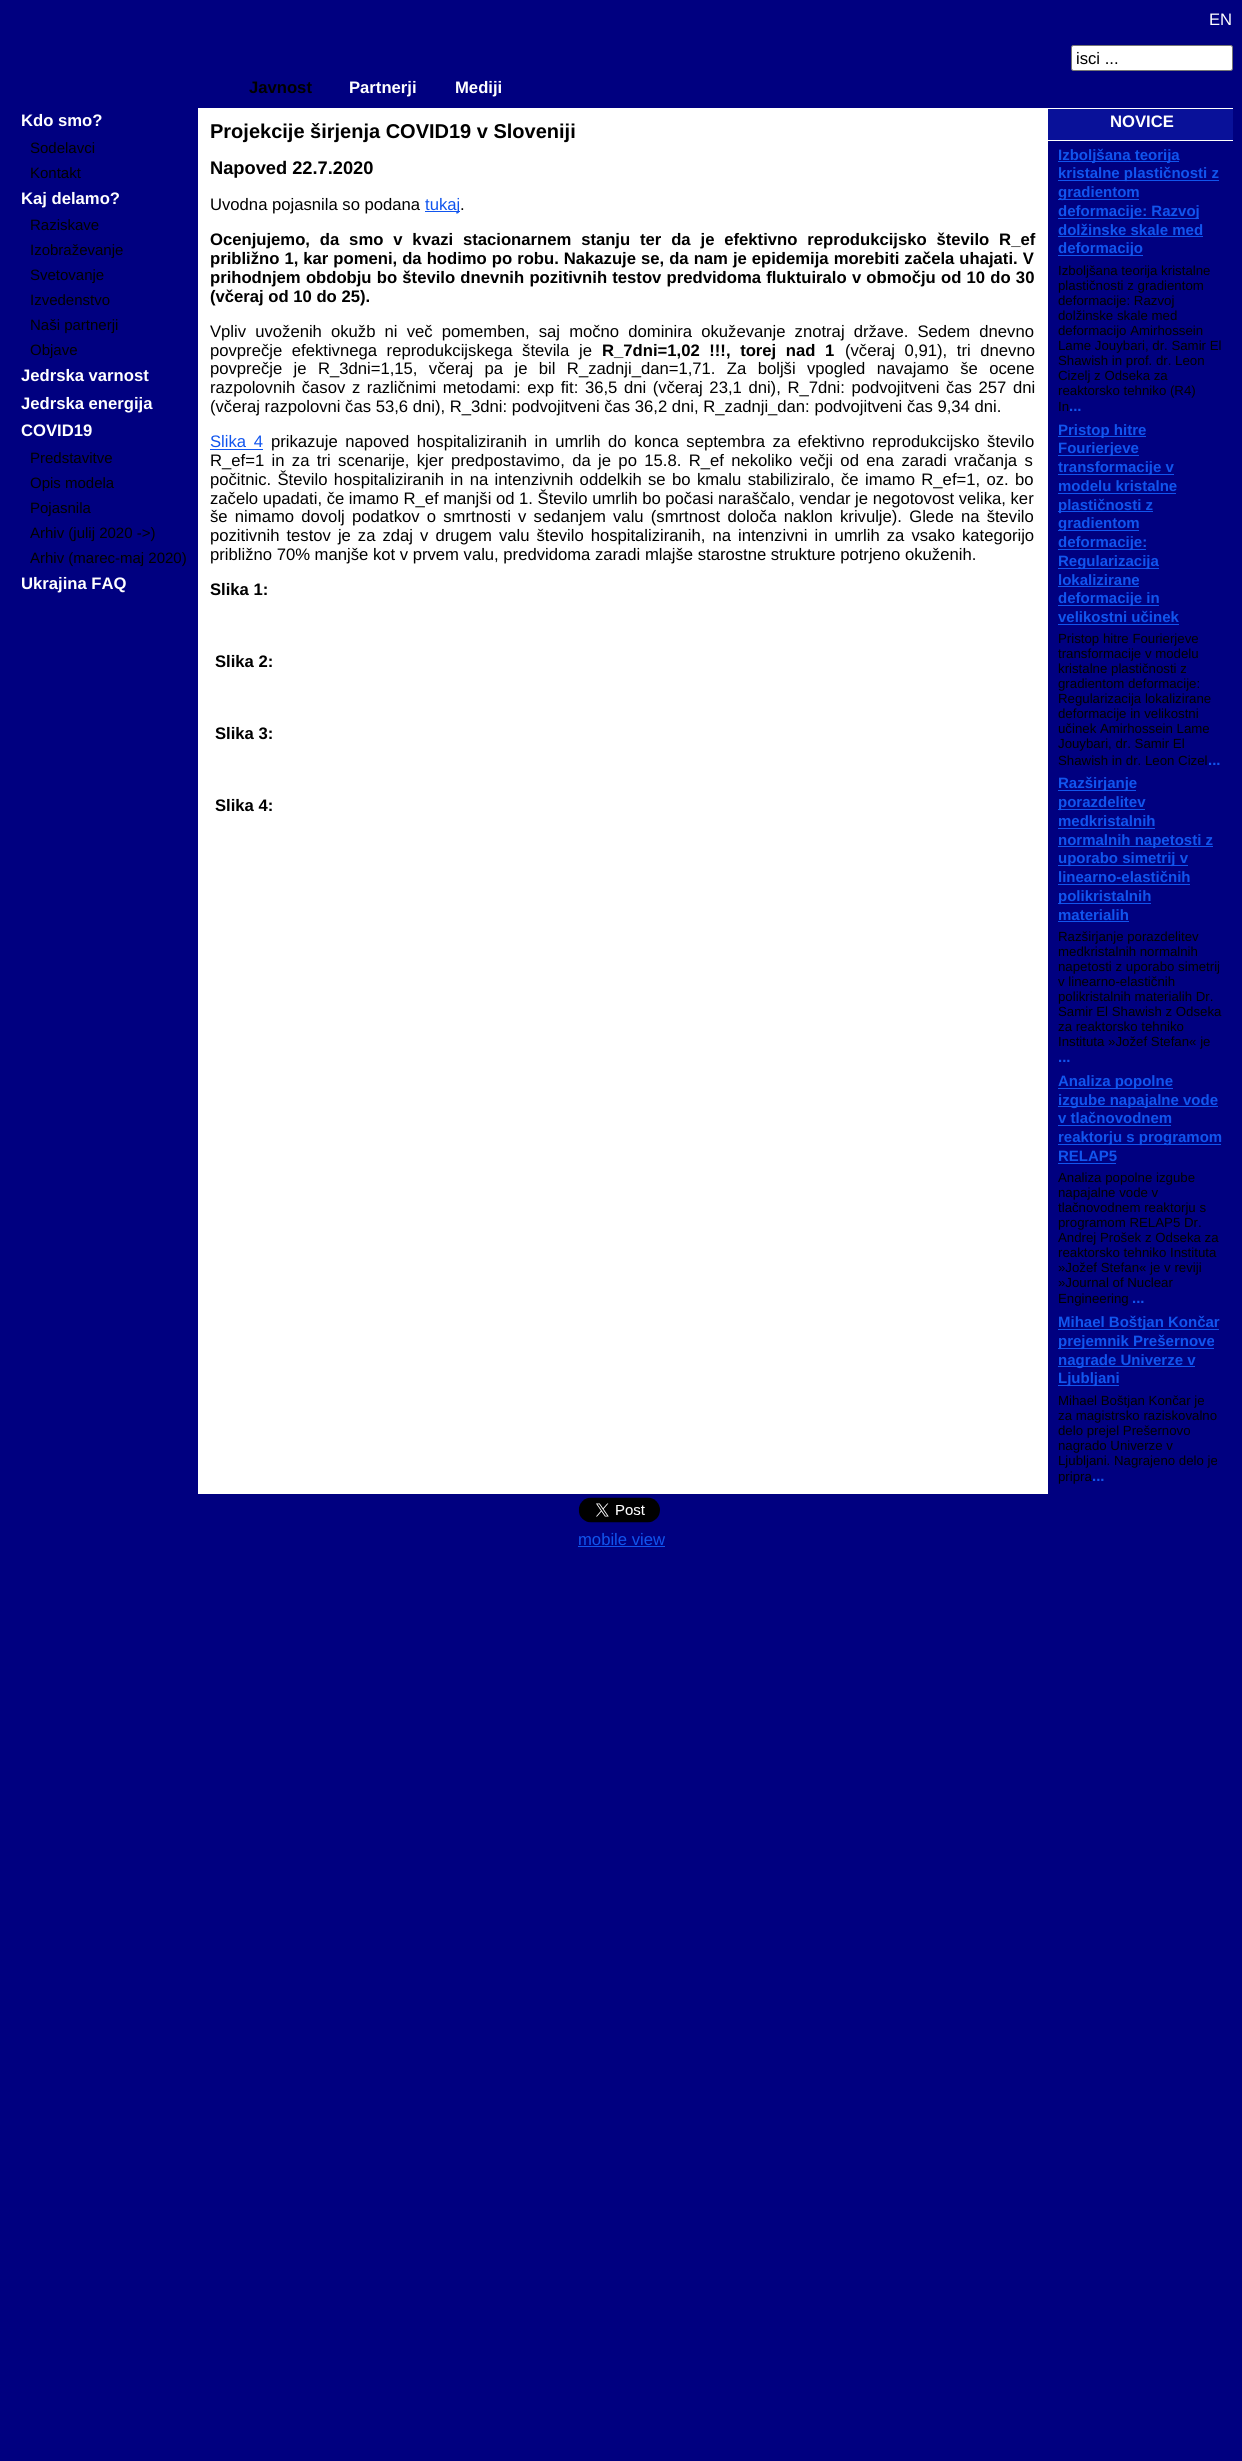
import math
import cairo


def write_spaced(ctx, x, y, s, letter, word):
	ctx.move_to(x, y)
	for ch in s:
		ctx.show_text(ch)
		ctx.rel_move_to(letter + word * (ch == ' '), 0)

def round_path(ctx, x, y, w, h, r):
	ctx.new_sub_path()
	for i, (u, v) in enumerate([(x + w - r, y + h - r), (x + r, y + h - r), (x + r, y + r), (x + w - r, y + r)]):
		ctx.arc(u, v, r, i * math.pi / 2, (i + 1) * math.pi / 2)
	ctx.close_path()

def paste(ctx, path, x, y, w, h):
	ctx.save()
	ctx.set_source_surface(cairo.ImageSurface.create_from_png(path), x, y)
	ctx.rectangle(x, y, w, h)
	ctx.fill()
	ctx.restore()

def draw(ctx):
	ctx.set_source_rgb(0, 0, 0.502)
	ctx.paint()
	ctx.select_font_face('Liberation Sans')
	ctx.set_font_size(16.65)
	ctx.set_source_rgb(1, 1, 1)
	ctx.move_to(1209, 25)
	ctx.show_text('EN')
	round_path(ctx, 1071.5, 45.5, 161, 25, 2)
	ctx.fill_preserve()
	ctx.set_source_rgb(0.463, 0.463, 0.463)
	ctx.set_line_width(1)
	ctx.stroke()
	ctx.set_source_rgb(0, 0, 0)
	ctx.move_to(1076, 64)
	ctx.show_text('isci ...')
	ctx.select_font_face('Liberation Sans', cairo.FONT_SLANT_NORMAL, cairo.FONT_WEIGHT_BOLD)
	ctx.move_to(249, 93)
	ctx.show_text('Javnost')
	ctx.set_source_rgb(1, 1, 1)
	for x, y, s in [
		(349, 93, 'Partnerji'),
		(455, 93, 'Mediji'),
		(21, 126, 'Kdo smo?'),
	]:
		ctx.move_to(x, y)
		ctx.show_text(s)
	ctx.select_font_face('Liberation Sans')
	ctx.set_font_size(15)
	ctx.set_source_rgb(0, 0, 0)
	ctx.move_to(30, 153)
	ctx.show_text('Sodelavci')
	ctx.move_to(30, 178)
	ctx.show_text('Kontakt')
	ctx.select_font_face('Liberation Sans', cairo.FONT_SLANT_NORMAL, cairo.FONT_WEIGHT_BOLD)
	ctx.set_font_size(16.65)
	ctx.set_source_rgb(1, 1, 1)
	ctx.move_to(21, 204)
	ctx.show_text('Kaj delamo?')
	ctx.select_font_face('Liberation Sans')
	ctx.set_font_size(15)
	ctx.set_source_rgb(0, 0, 0)
	for x, y, s in [
		(30, 230, 'Raziskave'),
		(30, 255, 'Izobraževanje'),
		(30, 280, 'Svetovanje'),
		(30, 305, 'Izvedenstvo'),
		(30, 330, 'Naši partnerji'),
		(30, 355, 'Objave'),
	]:
		ctx.move_to(x, y)
		ctx.show_text(s)
	ctx.select_font_face('Liberation Sans', cairo.FONT_SLANT_NORMAL, cairo.FONT_WEIGHT_BOLD)
	ctx.set_font_size(16.65)
	ctx.set_source_rgb(1, 1, 1)
	for x, y, s in [
		(21, 381, 'Jedrska varnost'),
		(21, 409, 'Jedrska energija'),
		(21, 436, 'COVID19'),
	]:
		ctx.move_to(x, y)
		ctx.show_text(s)
	ctx.select_font_face('Liberation Sans')
	ctx.set_font_size(15)
	ctx.set_source_rgb(0, 0, 0)
	for x, y, s in [
		(30, 463, 'Predstavitve'),
		(30, 488, 'Opis modela'),
		(30, 513, 'Pojasnila'),
		(30, 538, 'Arhiv (julij 2020 ->)'),
		(30, 563, 'Arhiv (marec-maj 2020)'),
	]:
		ctx.move_to(x, y)
		ctx.show_text(s)
	ctx.select_font_face('Liberation Sans', cairo.FONT_SLANT_NORMAL, cairo.FONT_WEIGHT_BOLD)
	ctx.set_font_size(16.65)
	ctx.set_source_rgb(1, 1, 1)
	ctx.move_to(21, 589)
	ctx.show_text('Ukrajina FAQ')
	ctx.rectangle(198, 108, 850, 1386)
	ctx.fill()
	ctx.set_font_size(20)
	ctx.set_source_rgb(0, 0, 0)
	ctx.move_to(210, 138)
	ctx.show_text('Projekcije širjenja COVID19 v Sloveniji')
	ctx.set_font_size(18.25)
	ctx.move_to(210, 174)
	ctx.show_text('Napoved 22.7.2020')
	ctx.select_font_face('Liberation Sans')
	ctx.set_font_size(16.65)
	ctx.move_to(210, 210)
	ctx.show_text('Uvodna pojasnila so podana')
	ctx.set_source_rgb(0.067, 0.333, 0.933)
	ctx.rectangle(425, 211, 35, 1)
	ctx.fill()
	ctx.move_to(425, 210)
	ctx.show_text('tukaj')
	ctx.set_source_rgb(0, 0, 0)
	ctx.move_to(460, 210)
	ctx.show_text('.')
	ctx.select_font_face('Liberation Sans', cairo.FONT_SLANT_NORMAL, cairo.FONT_WEIGHT_BOLD)
	write_spaced(ctx, 210, 245, 'Ocenjujemo, da smo v kvazi stacionarnem stanju ter da je efektivno reprodukcijsko število R_ef', 0, 5.25)
	write_spaced(ctx, 210, 264, 'približno 1, kar pomeni, da hodimo po robu. Nakazuje se, da nam je epidemija morebiti začela uhajati. V', 0, 0.4)
	write_spaced(ctx, 210, 283, 'prihodnjem obdobju bo število dnevnih pozitivnih testov predvidoma fluktuiralo v območju od 10 do 30', 0, 0.6)
	ctx.move_to(210, 302)
	ctx.show_text('(včeraj od 10 do 25).')
	ctx.select_font_face('Liberation Sans')
	write_spaced(ctx, 210, 337, 'Vpliv uvoženih okužb ni več pomemben, saj močno dominira okuževanje znotraj države. Sedem dnevno', 0, 4.5)
	write_spaced(ctx, 210, 356, 'povprečje efektivnega reprodukcijskega števila je', 0, 5)
	ctx.select_font_face('Liberation Sans', cairo.FONT_SLANT_NORMAL, cairo.FONT_WEIGHT_BOLD)
	write_spaced(ctx, 602, 356, 'R_7dni=1,02 !!!, torej nad 1', 0, 5)
	ctx.select_font_face('Liberation Sans')
	write_spaced(ctx, 845, 356, '(včeraj 0,91), tri dnevno', 0, 5)
	write_spaced(ctx, 210, 374, 'povprečje je R_3dni=1,15, včeraj pa je bil R_zadnji_dan=1,71. Za boljši vpogled navajamo še ocene', 0, 6.75)
	write_spaced(ctx, 210, 393, 'razpolovnih časov z različnimi metodami: exp fit: 36,5 dni (včeraj 23,1 dni), R_7dni: podvojitveni čas 257 dni', 0, 2)
	ctx.move_to(210, 412)
	ctx.show_text('(včeraj razpolovni čas 53,6 dni), R_3dni: podvojitveni čas 36,2 dni, R_zadnji_dan: podvojitveni čas 9,34 dni.')
	ctx.set_source_rgb(0.067, 0.333, 0.933)
	write_spaced(ctx, 210, 447, 'Slika 4', 0, 3)
	ctx.rectangle(210, 449, 53, 1)
	ctx.fill()
	ctx.set_source_rgb(0, 0, 0)
	write_spaced(ctx, 271, 447, 'prikazuje napoved hospitaliziranih in umrlih do konca septembra za efektivno reprodukcijsko število', 0, 3)
	write_spaced(ctx, 210, 466, 'R_ef=1 in za tri scenarije, kjer predpostavimo, da je po 15.8. R_ef nekoliko večji od ena zaradi vračanja s', 0, 2.75)
	write_spaced(ctx, 210, 485, 'počitnic. Število hospitaliziranih in na intenzivnih oddelkih se bo kmalu stabiliziralo, če imamo R_ef=1, oz. bo', 0, 1.75)
	ctx.move_to(210, 504)
	ctx.show_text('začelo upadati, če imamo R_ef manjši od 1. Število umrlih bo počasi naraščalo, vendar je negotovost velika, ker')
	write_spaced(ctx, 210, 522, 'še nimamo dovolj podatkov o smrtnosti v sedanjem valu (smrtnost določa naklon krivulje). Glede na število', 0, 2.6)
	write_spaced(ctx, 210, 541, 'pozitivnih testov je za zdaj v drugem valu število hospitaliziranih, na intenzivni in umrlih za vsako kategorijo', 0, 2.4)
	ctx.move_to(210, 560)
	ctx.show_text('približno 70% manjše kot v prvem valu, predvidoma zaradi mlajše starostne strukture potrjeno okuženih.')
	ctx.select_font_face('Liberation Sans', cairo.FONT_SLANT_NORMAL, cairo.FONT_WEIGHT_BOLD)
	for x, y, s in [
		(210, 595, 'Slika 1:'),
		(215, 667, 'Slika 2:'),
		(215, 739, 'Slika 3:'),
		(215, 811, 'Slika 4:'),
	]:
		ctx.move_to(x, y)
		ctx.show_text(s)
	ctx.set_source_rgb(1, 1, 1)
	ctx.rectangle(1048, 108, 185, 1)
	ctx.fill()
	ctx.set_source_rgb(0.039, 0.067, 0.6)
	ctx.rectangle(1048, 109, 185, 31)
	ctx.fill()
	ctx.set_source_rgb(1, 1, 1)
	ctx.rectangle(1048, 140, 185, 1)
	ctx.fill()
	ctx.move_to(1110, 127)
	ctx.show_text('NOVICE')
	ctx.set_source_rgb(0.067, 0.333, 0.933)
	ctx.rectangle(1058, 161, 121, 1)
	ctx.fill()
	ctx.set_font_size(15)
	ctx.move_to(1058, 160)
	ctx.show_text('Izboljšana teorija')
	ctx.rectangle(1058, 180, 161, 1)
	ctx.fill()
	ctx.move_to(1058, 178)
	ctx.show_text('kristalne plastičnosti z')
	ctx.rectangle(1058, 199, 81, 1)
	ctx.fill()
	ctx.move_to(1058, 197)
	ctx.show_text('gradientom')
	ctx.rectangle(1058, 218, 141, 1)
	ctx.fill()
	ctx.move_to(1058, 216)
	ctx.show_text('deformacije: Razvoj')
	ctx.move_to(1058, 235)
	ctx.show_text('dolžinske skale med')
	ctx.rectangle(1058, 236, 145, 1)
	ctx.fill()
	ctx.rectangle(1058, 255, 85, 1)
	ctx.fill()
	ctx.move_to(1058, 253)
	ctx.show_text('deformacijo')
	ctx.select_font_face('Liberation Sans')
	ctx.set_font_size(13.25)
	ctx.set_source_rgb(0, 0, 0)
	for x, y, s in [
		(1058, 275, 'Izboljšana teorija kristalne'),
		(1058, 290, 'plastičnosti z gradientom'),
		(1058, 305, 'deformacije: Razvoj'),
		(1058, 320, 'dolžinske skale med'),
		(1058, 335, 'deformacijo Amirhossein'),
		(1058, 350, 'Lame Jouybari, dr. Samir El'),
		(1058, 365, 'Shawish in prof. dr. Leon'),
		(1058, 380, 'Cizelj z Odseka za'),
		(1058, 395, 'reaktorsko tehniko (R4)'),
		(1058, 411, 'In'),
	]:
		ctx.move_to(x, y)
		ctx.show_text(s)
	ctx.select_font_face('Liberation Sans', cairo.FONT_SLANT_NORMAL, cairo.FONT_WEIGHT_BOLD)
	ctx.set_font_size(15)
	ctx.set_source_rgb(0.067, 0.333, 0.933)
	ctx.move_to(1069, 411)
	ctx.show_text('...')
	ctx.rectangle(1058, 436, 88, 1)
	ctx.fill()
	ctx.move_to(1058, 435)
	ctx.show_text('Pristop hitre')
	ctx.rectangle(1058, 455, 81, 1)
	ctx.fill()
	ctx.move_to(1058, 453)
	ctx.show_text('Fourierjeve')
	ctx.rectangle(1058, 474, 116, 1)
	ctx.fill()
	ctx.move_to(1058, 472)
	ctx.show_text('transformacije v')
	ctx.move_to(1058, 491)
	ctx.show_text('modelu kristalne')
	ctx.rectangle(1058, 493, 118, 1)
	ctx.fill()
	ctx.rectangle(1058, 511, 95, 1)
	ctx.fill()
	ctx.move_to(1058, 510)
	ctx.show_text('plastičnosti z')
	ctx.rectangle(1058, 530, 81, 1)
	ctx.fill()
	ctx.move_to(1058, 528)
	ctx.show_text('gradientom')
	ctx.rectangle(1058, 549, 88, 1)
	ctx.fill()
	ctx.move_to(1058, 547)
	ctx.show_text('deformacije:')
	ctx.rectangle(1058, 568, 101, 1)
	ctx.fill()
	ctx.move_to(1058, 566)
	ctx.show_text('Regularizacija')
	ctx.move_to(1058, 585)
	ctx.show_text('lokalizirane')
	ctx.rectangle(1058, 586, 81, 1)
	ctx.fill()
	ctx.rectangle(1058, 605, 101, 1)
	ctx.fill()
	ctx.move_to(1058, 603)
	ctx.show_text('deformacije in')
	ctx.move_to(1058, 622)
	ctx.show_text('velikostni učinek')
	ctx.rectangle(1058, 624, 121, 1)
	ctx.fill()
	ctx.select_font_face('Liberation Sans')
	ctx.set_font_size(13.25)
	ctx.set_source_rgb(0, 0, 0)
	for x, y, s in [
		(1058, 643, 'Pristop hitre Fourierjeve'),
		(1058, 658, 'transformacije v modelu'),
		(1058, 673, 'kristalne plastičnosti z'),
		(1058, 688, 'gradientom deformacije:'),
		(1058, 703, 'Regularizacija lokalizirane'),
		(1058, 718, 'deformacije in velikostni'),
		(1058, 733, 'učinek Amirhossein Lame'),
		(1058, 748, 'Jouybari, dr. Samir El'),
		(1058, 765, 'Shawish in dr. Leon Cizel'),
	]:
		ctx.move_to(x, y)
		ctx.show_text(s)
	ctx.select_font_face('Liberation Sans', cairo.FONT_SLANT_NORMAL, cairo.FONT_WEIGHT_BOLD)
	ctx.set_font_size(15)
	ctx.set_source_rgb(0.067, 0.333, 0.933)
	ctx.move_to(1208, 765)
	ctx.show_text('...')
	ctx.rectangle(1058, 790, 78, 1)
	ctx.fill()
	ctx.move_to(1058, 788)
	ctx.show_text('Razširjanje')
	ctx.rectangle(1058, 809, 87, 1)
	ctx.fill()
	ctx.move_to(1058, 807)
	ctx.show_text('porazdelitev')
	ctx.move_to(1058, 826)
	ctx.show_text('medkristalnih')
	ctx.rectangle(1058, 828, 97, 1)
	ctx.fill()
	ctx.rectangle(1058, 846, 155, 1)
	ctx.fill()
	ctx.move_to(1058, 845)
	ctx.show_text('normalnih napetosti z')
	ctx.rectangle(1058, 865, 130, 1)
	ctx.fill()
	ctx.move_to(1058, 863)
	ctx.show_text('uporabo simetrij v')
	ctx.move_to(1058, 882)
	ctx.show_text('linearno-elastičnih')
	ctx.rectangle(1058, 884, 132, 1)
	ctx.fill()
	ctx.rectangle(1058, 903, 93, 1)
	ctx.fill()
	ctx.move_to(1058, 901)
	ctx.show_text('polikristalnih')
	ctx.move_to(1058, 920)
	ctx.show_text('materialih')
	ctx.rectangle(1058, 921, 71, 1)
	ctx.fill()
	ctx.select_font_face('Liberation Sans')
	ctx.set_font_size(13.25)
	ctx.set_source_rgb(0, 0, 0)
	for x, y, s in [
		(1058, 941, 'Razširjanje porazdelitev'),
		(1058, 956, 'medkristalnih normalnih'),
		(1058, 971, 'napetosti z uporabo simetrij'),
		(1058, 986, 'v linearno-elastičnih'),
		(1058, 1001, 'polikristalnih materialih Dr.'),
		(1058, 1016, 'Samir El Shawish z Odseka'),
		(1058, 1031, 'za reaktorsko tehniko'),
		(1058, 1046, 'Instituta »Jožef Stefan« je'),
	]:
		ctx.move_to(x, y)
		ctx.show_text(s)
	ctx.select_font_face('Liberation Sans', cairo.FONT_SLANT_NORMAL, cairo.FONT_WEIGHT_BOLD)
	ctx.set_font_size(15)
	ctx.set_source_rgb(0.067, 0.333, 0.933)
	ctx.move_to(1058, 1062)
	ctx.show_text('...')
	ctx.rectangle(1058, 1088, 115, 1)
	ctx.fill()
	ctx.move_to(1058, 1086)
	ctx.show_text('Analiza popolne')
	ctx.rectangle(1058, 1106, 160, 1)
	ctx.fill()
	ctx.move_to(1058, 1105)
	ctx.show_text('izgube napajalne vode')
	ctx.move_to(1058, 1123)
	ctx.show_text('v tlačnovodnem')
	ctx.rectangle(1058, 1125, 113, 1)
	ctx.fill()
	ctx.rectangle(1058, 1144, 163, 1)
	ctx.fill()
	ctx.move_to(1058, 1142)
	ctx.show_text('reaktorju s programom')
	ctx.move_to(1058, 1161)
	ctx.show_text('RELAP5')
	ctx.rectangle(1058, 1163, 58, 1)
	ctx.fill()
	ctx.select_font_face('Liberation Sans')
	ctx.set_font_size(13.25)
	ctx.set_source_rgb(0, 0, 0)
	for x, y, s in [
		(1058, 1182, 'Analiza popolne izgube'),
		(1058, 1197, 'napajalne vode v'),
		(1058, 1212, 'tlačnovodnem reaktorju s'),
		(1058, 1227, 'programom RELAP5 Dr.'),
		(1058, 1242, 'Andrej Prošek z Odseka za'),
		(1058, 1257, 'reaktorsko tehniko Instituta'),
		(1058, 1272, '»Jožef Stefan« je v reviji'),
		(1058, 1287, '»Journal of Nuclear'),
		(1058, 1303, 'Engineering'),
	]:
		ctx.move_to(x, y)
		ctx.show_text(s)
	ctx.select_font_face('Liberation Sans', cairo.FONT_SLANT_NORMAL, cairo.FONT_WEIGHT_BOLD)
	ctx.set_font_size(15)
	ctx.set_source_rgb(0.067, 0.333, 0.933)
	ctx.move_to(1132, 1303)
	ctx.show_text('...')
	ctx.rectangle(1058, 1329, 161, 1)
	ctx.fill()
	ctx.move_to(1058, 1327)
	ctx.show_text('Mihael Boštjan Končar')
	ctx.rectangle(1058, 1348, 156, 1)
	ctx.fill()
	ctx.move_to(1058, 1346)
	ctx.show_text('prejemnik Prešernove')
	ctx.rectangle(1058, 1366, 137, 1)
	ctx.fill()
	ctx.move_to(1058, 1365)
	ctx.show_text('nagrade Univerze v')
	ctx.rectangle(1058, 1385, 61, 1)
	ctx.fill()
	ctx.move_to(1058, 1383)
	ctx.show_text('Ljubljani')
	ctx.select_font_face('Liberation Sans')
	ctx.set_font_size(13.25)
	ctx.set_source_rgb(0, 0, 0)
	for x, y, s in [
		(1058, 1405, 'Mihael Boštjan Končar je'),
		(1058, 1420, 'za magistrsko raziskovalno'),
		(1058, 1435, 'delo prejel Prešernovo'),
		(1058, 1450, 'nagrado Univerze v'),
		(1058, 1465, 'Ljubljani. Nagrajeno delo je'),
		(1058, 1481, 'pripra'),
	]:
		ctx.move_to(x, y)
		ctx.show_text(s)
	ctx.select_font_face('Liberation Sans', cairo.FONT_SLANT_NORMAL, cairo.FONT_WEIGHT_BOLD)
	ctx.set_font_size(15)
	ctx.set_source_rgb(0.067, 0.333, 0.933)
	ctx.move_to(1092, 1481)
	ctx.show_text('...')
	paste(ctx, 'media/1.png', 578, 1497, 82, 26)
	ctx.select_font_face('Liberation Sans')
	ctx.set_font_size(16.65)
	ctx.move_to(578, 1545)
	ctx.show_text('mobile view')
	ctx.rectangle(578, 1546, 87, 1)
	ctx.fill()


surface = cairo.ImageSurface(cairo.FORMAT_RGB24, 1242, 2461)
ctx = cairo.Context(surface)
options = cairo.FontOptions()
options.set_hint_metrics(cairo.HINT_METRICS_OFF)
options.set_hint_style(cairo.HINT_STYLE_NONE)
ctx.set_font_options(options)
ctx.set_miter_limit(4)
draw(ctx)
surface.write_to_png('image.png')
